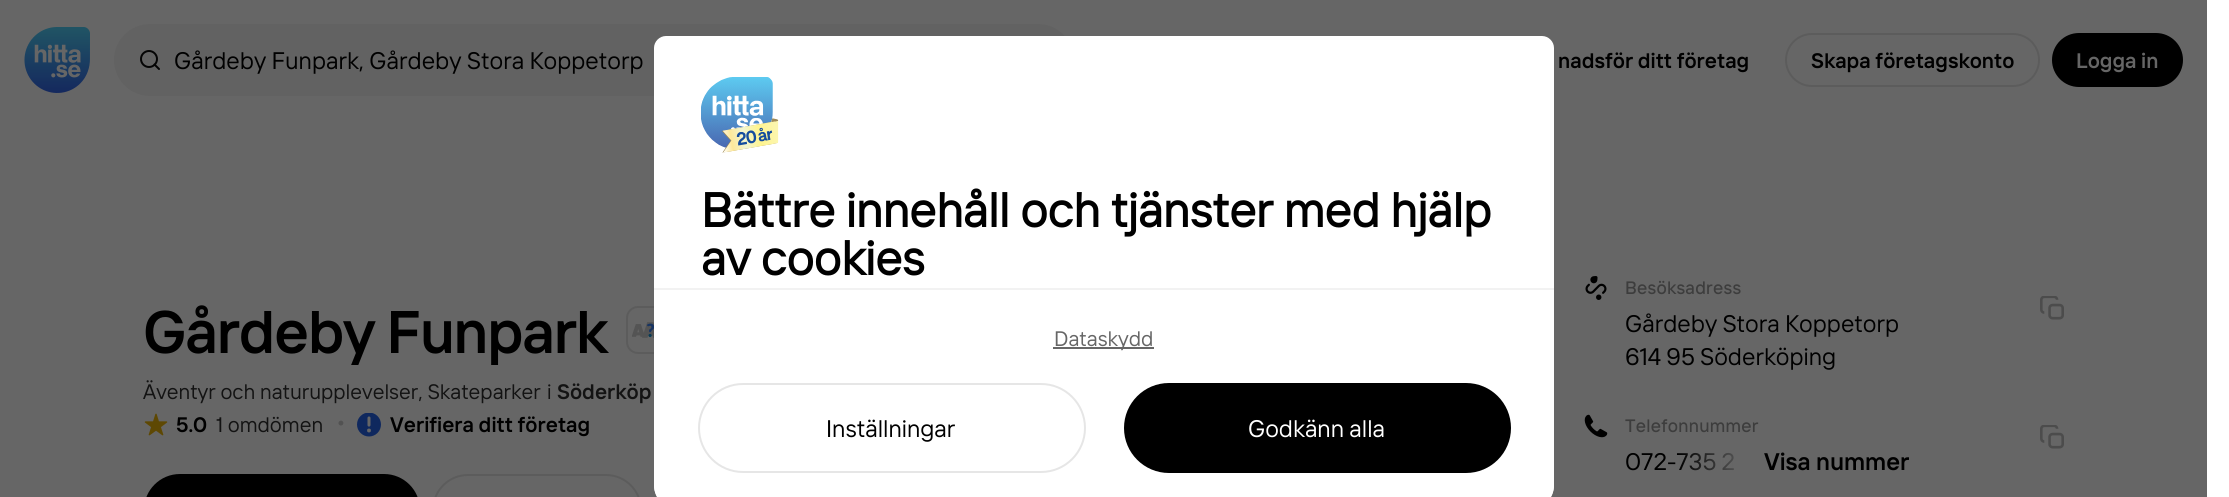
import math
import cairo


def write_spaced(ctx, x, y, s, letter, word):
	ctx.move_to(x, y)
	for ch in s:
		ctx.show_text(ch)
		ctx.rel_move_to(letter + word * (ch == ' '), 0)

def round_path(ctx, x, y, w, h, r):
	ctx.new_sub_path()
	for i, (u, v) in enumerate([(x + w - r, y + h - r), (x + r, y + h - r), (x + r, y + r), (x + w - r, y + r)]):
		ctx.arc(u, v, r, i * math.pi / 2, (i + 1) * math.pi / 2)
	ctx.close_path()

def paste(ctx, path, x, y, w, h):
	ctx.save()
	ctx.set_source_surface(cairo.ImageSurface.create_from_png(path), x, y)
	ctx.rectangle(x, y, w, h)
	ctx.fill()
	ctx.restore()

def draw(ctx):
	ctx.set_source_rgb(1, 1, 1)
	ctx.paint()
	ctx.set_source_rgb(0.4, 0.4, 0.4)
	ctx.rectangle(0, 0, 2207, 497)
	ctx.fill()
	paste(ctx, 'media/1.png', 24, 27, 66, 66)
	ctx.set_source_rgb(0.384, 0.384, 0.384)
	round_path(ctx, 114, 24, 960, 72, 36)
	ctx.fill()
	ctx.new_path()
	ctx.move_to(159, 69)
	ctx.line_to(154.5, 64.5)
	ctx.set_source_rgb(0.016, 0.016, 0.016)
	ctx.set_line_cap(cairo.LINE_CAP_ROUND)
	ctx.set_line_join(cairo.LINE_JOIN_ROUND)
	ctx.stroke()
	ctx.arc(149, 59, 8, 0, 2 * math.pi)
	ctx.set_line_cap(cairo.LINE_CAP_BUTT)
	ctx.set_line_join(cairo.LINE_JOIN_MITER)
	ctx.stroke()
	ctx.select_font_face('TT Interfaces')
	ctx.set_font_size(24)
	ctx.set_source_rgb(0, 0, 0)
	ctx.move_to(174, 69)
	ctx.show_text('Gårdeby Funpark, Gårdeby Stora Koppetorp')
	ctx.select_font_face('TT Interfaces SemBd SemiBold')
	ctx.set_font_size(21)
	ctx.move_to(1558, 68)
	ctx.show_text('nadsför ditt företag')
	round_path(ctx, 1786, 34, 253, 52, 26)
	ctx.set_source_rgb(0.361, 0.361, 0.361)
	ctx.stroke()
	ctx.set_source_rgb(0, 0, 0)
	ctx.move_to(1811, 68)
	ctx.show_text('Skapa företagskonto')
	round_path(ctx, 2052, 33, 131, 54, 27)
	ctx.fill()
	ctx.set_source_rgb(0.4, 0.4, 0.4)
	ctx.move_to(2076, 68)
	ctx.show_text('Logga in')
	round_path(ctx, 627, 307, 46, 46, 11)
	ctx.set_source_rgb(0.361, 0.361, 0.361)
	ctx.stroke()
	round_path(ctx, 655, 475, 171, 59, 35)
	ctx.stroke()
	ctx.set_source_rgb(1, 1, 1)
	ctx.new_path()
	ctx.move_to(666, 36)
	ctx.line_to(1542, 36)
	ctx.curve_to(1548.5, 36, 1554, 41.5, 1554, 48)
	ctx.line_to(1554, 485)
	ctx.curve_to(1554, 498.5, 1543.5, 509, 1530, 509)
	ctx.line_to(678, 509)
	ctx.curve_to(664.5, 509, 654, 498.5, 654, 485)
	ctx.line_to(654, 48)
	ctx.curve_to(654, 41.5, 659.5, 36, 666, 36)
	ctx.close_path()
	ctx.fill()
	paste(ctx, 'media/2.png', 701, 77, 78, 76)
	ctx.select_font_face('TT Interfaces', cairo.FONT_SLANT_NORMAL, cairo.FONT_WEIGHT_BOLD)
	ctx.set_font_size(48)
	ctx.set_source_rgb(0, 0, 0)
	ctx.move_to(701, 227)
	ctx.show_text('Bättre innehåll och tjänster med hjälp')
	ctx.move_to(701, 275)
	ctx.show_text('av cookies')
	ctx.set_source_rgb(1, 1, 1)
	ctx.new_path()
	ctx.move_to(654, 288)
	ctx.line_to(1554, 288)
	ctx.line_to(1554, 485)
	ctx.curve_to(1554, 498.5, 1543.5, 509, 1530, 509)
	ctx.line_to(678, 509)
	ctx.curve_to(664.5, 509, 654, 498.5, 654, 485)
	ctx.close_path()
	ctx.fill()
	ctx.set_source_rgb(0.949, 0.949, 0.949)
	ctx.rectangle(654, 288, 900, 2)
	ctx.fill()
	ctx.set_source_rgb(0.4, 0.4, 0.4)
	ctx.rectangle(1053, 347, 101, 2)
	ctx.fill()
	ctx.select_font_face('TT Interfaces')
	ctx.set_font_size(21)
	ctx.move_to(1054, 346)
	ctx.show_text('Dataskydd')
	round_path(ctx, 699, 384, 386, 88, 44)
	ctx.set_source_rgb(0.902, 0.902, 0.902)
	ctx.stroke()
	ctx.set_font_size(24)
	ctx.set_source_rgb(0, 0, 0)
	ctx.move_to(826, 437)
	ctx.show_text('Inställningar')
	round_path(ctx, 1124, 383, 387, 90, 45)
	ctx.fill()
	ctx.set_source_rgb(1, 1, 1)
	ctx.move_to(1248, 437)
	ctx.show_text('Godkänn alla')
	ctx.select_font_face('TT Interfaces SemBd SemiBold')
	ctx.set_font_size(60)
	ctx.set_source_rgb(0, 0, 0)
	write_spaced(ctx, 143, 353, 'Gårdeby Funpark', -1.25, 0)
	paste(ctx, 'media/3.png', 632, 322, 22, 16)
	ctx.select_font_face('TT Interfaces')
	ctx.set_font_size(21)
	ctx.set_source_rgb(0.078, 0.078, 0.078)
	ctx.move_to(143, 399)
	ctx.show_text('Äventyr och naturupplevelser, Skateparker')
	ctx.move_to(547, 399)
	ctx.show_text('i')
	ctx.select_font_face('TT Interfaces SemBd SemiBold')
	ctx.move_to(557, 399)
	ctx.show_text('Söderköp')
	paste(ctx, 'media/4.png', 144, 413, 24, 23)
	ctx.set_source_rgb(0, 0, 0)
	ctx.move_to(176, 432)
	ctx.show_text('5.0')
	ctx.select_font_face('TT Interfaces')
	ctx.set_source_rgb(0.078, 0.078, 0.078)
	ctx.move_to(216, 432)
	ctx.show_text('1 omdömen')
	ctx.set_font_size(45)
	ctx.set_source_rgb(0.322, 0.322, 0.322)
	ctx.move_to(336, 435)
	ctx.show_text('·')
	paste(ctx, 'media/5.png', 357, 413, 24, 24)
	ctx.select_font_face('TT Interfaces SemBd SemiBold')
	ctx.set_font_size(21)
	ctx.set_source_rgb(0, 0, 0)
	ctx.move_to(390, 432)
	ctx.show_text('Verifiera ditt företag')
	round_path(ctx, 144, 474, 276, 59, 36)
	ctx.fill()
	round_path(ctx, 433, 475, 208, 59, 35)
	ctx.set_source_rgb(0.361, 0.361, 0.361)
	ctx.stroke()
	paste(ctx, 'media/6.png', 1585, 276, 22, 24)
	ctx.select_font_face('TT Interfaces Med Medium')
	ctx.set_font_size(18)
	ctx.set_source_rgb(0.239, 0.239, 0.239)
	write_spaced(ctx, 1625, 294, 'Besöksadress', 0.25, 0)
	ctx.select_font_face('TT Interfaces')
	ctx.set_font_size(24)
	ctx.set_source_rgb(0, 0, 0)
	ctx.move_to(1625, 332)
	ctx.show_text('Gårdeby Stora Koppetorp')
	ctx.select_font_face('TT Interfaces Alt')
	ctx.move_to(1625, 365)
	ctx.show_text('614 95')
	ctx.select_font_face('TT Interfaces')
	ctx.move_to(1700, 365)
	ctx.show_text('Söderköping')
	paste(ctx, 'media/7.png', 2040, 296, 24, 24)
	paste(ctx, 'media/8.png', 1584, 414, 24, 24)
	ctx.select_font_face('TT Interfaces Med Medium')
	ctx.set_font_size(18)
	ctx.set_source_rgb(0.239, 0.239, 0.239)
	write_spaced(ctx, 1625, 432, 'Telefonnummer', 0.25, 0)
	ctx.select_font_face('TT Interfaces')
	ctx.set_font_size(24)
	ctx.set_source_rgb(0, 0, 0)
	ctx.move_to(1625, 470)
	ctx.show_text('072-735 2')
	gradient = cairo.LinearGradient(1752, 461, 1677, 461)
	gradient.add_color_stop_rgba(0, 0.4, 0.4, 0.4, 1)
	gradient.add_color_stop_rgba(1, 0.4, 0.4, 0.4, 0)
	ctx.set_source(gradient)
	ctx.rectangle(1679, 453, 56, 18)
	ctx.fill()
	ctx.select_font_face('TT Interfaces SemBd SemiBold')
	ctx.set_source_rgb(0, 0, 0)
	ctx.move_to(1764, 470)
	ctx.show_text('Visa nummer')
	paste(ctx, 'media/7.png', 2040, 425, 24, 24)


surface = cairo.ImageSurface(cairo.FORMAT_RGB24, 2229, 497)
ctx = cairo.Context(surface)
options = cairo.FontOptions()
options.set_hint_metrics(cairo.HINT_METRICS_OFF)
options.set_hint_style(cairo.HINT_STYLE_NONE)
ctx.set_font_options(options)
ctx.set_miter_limit(4)
draw(ctx)
surface.write_to_png('image.png')
